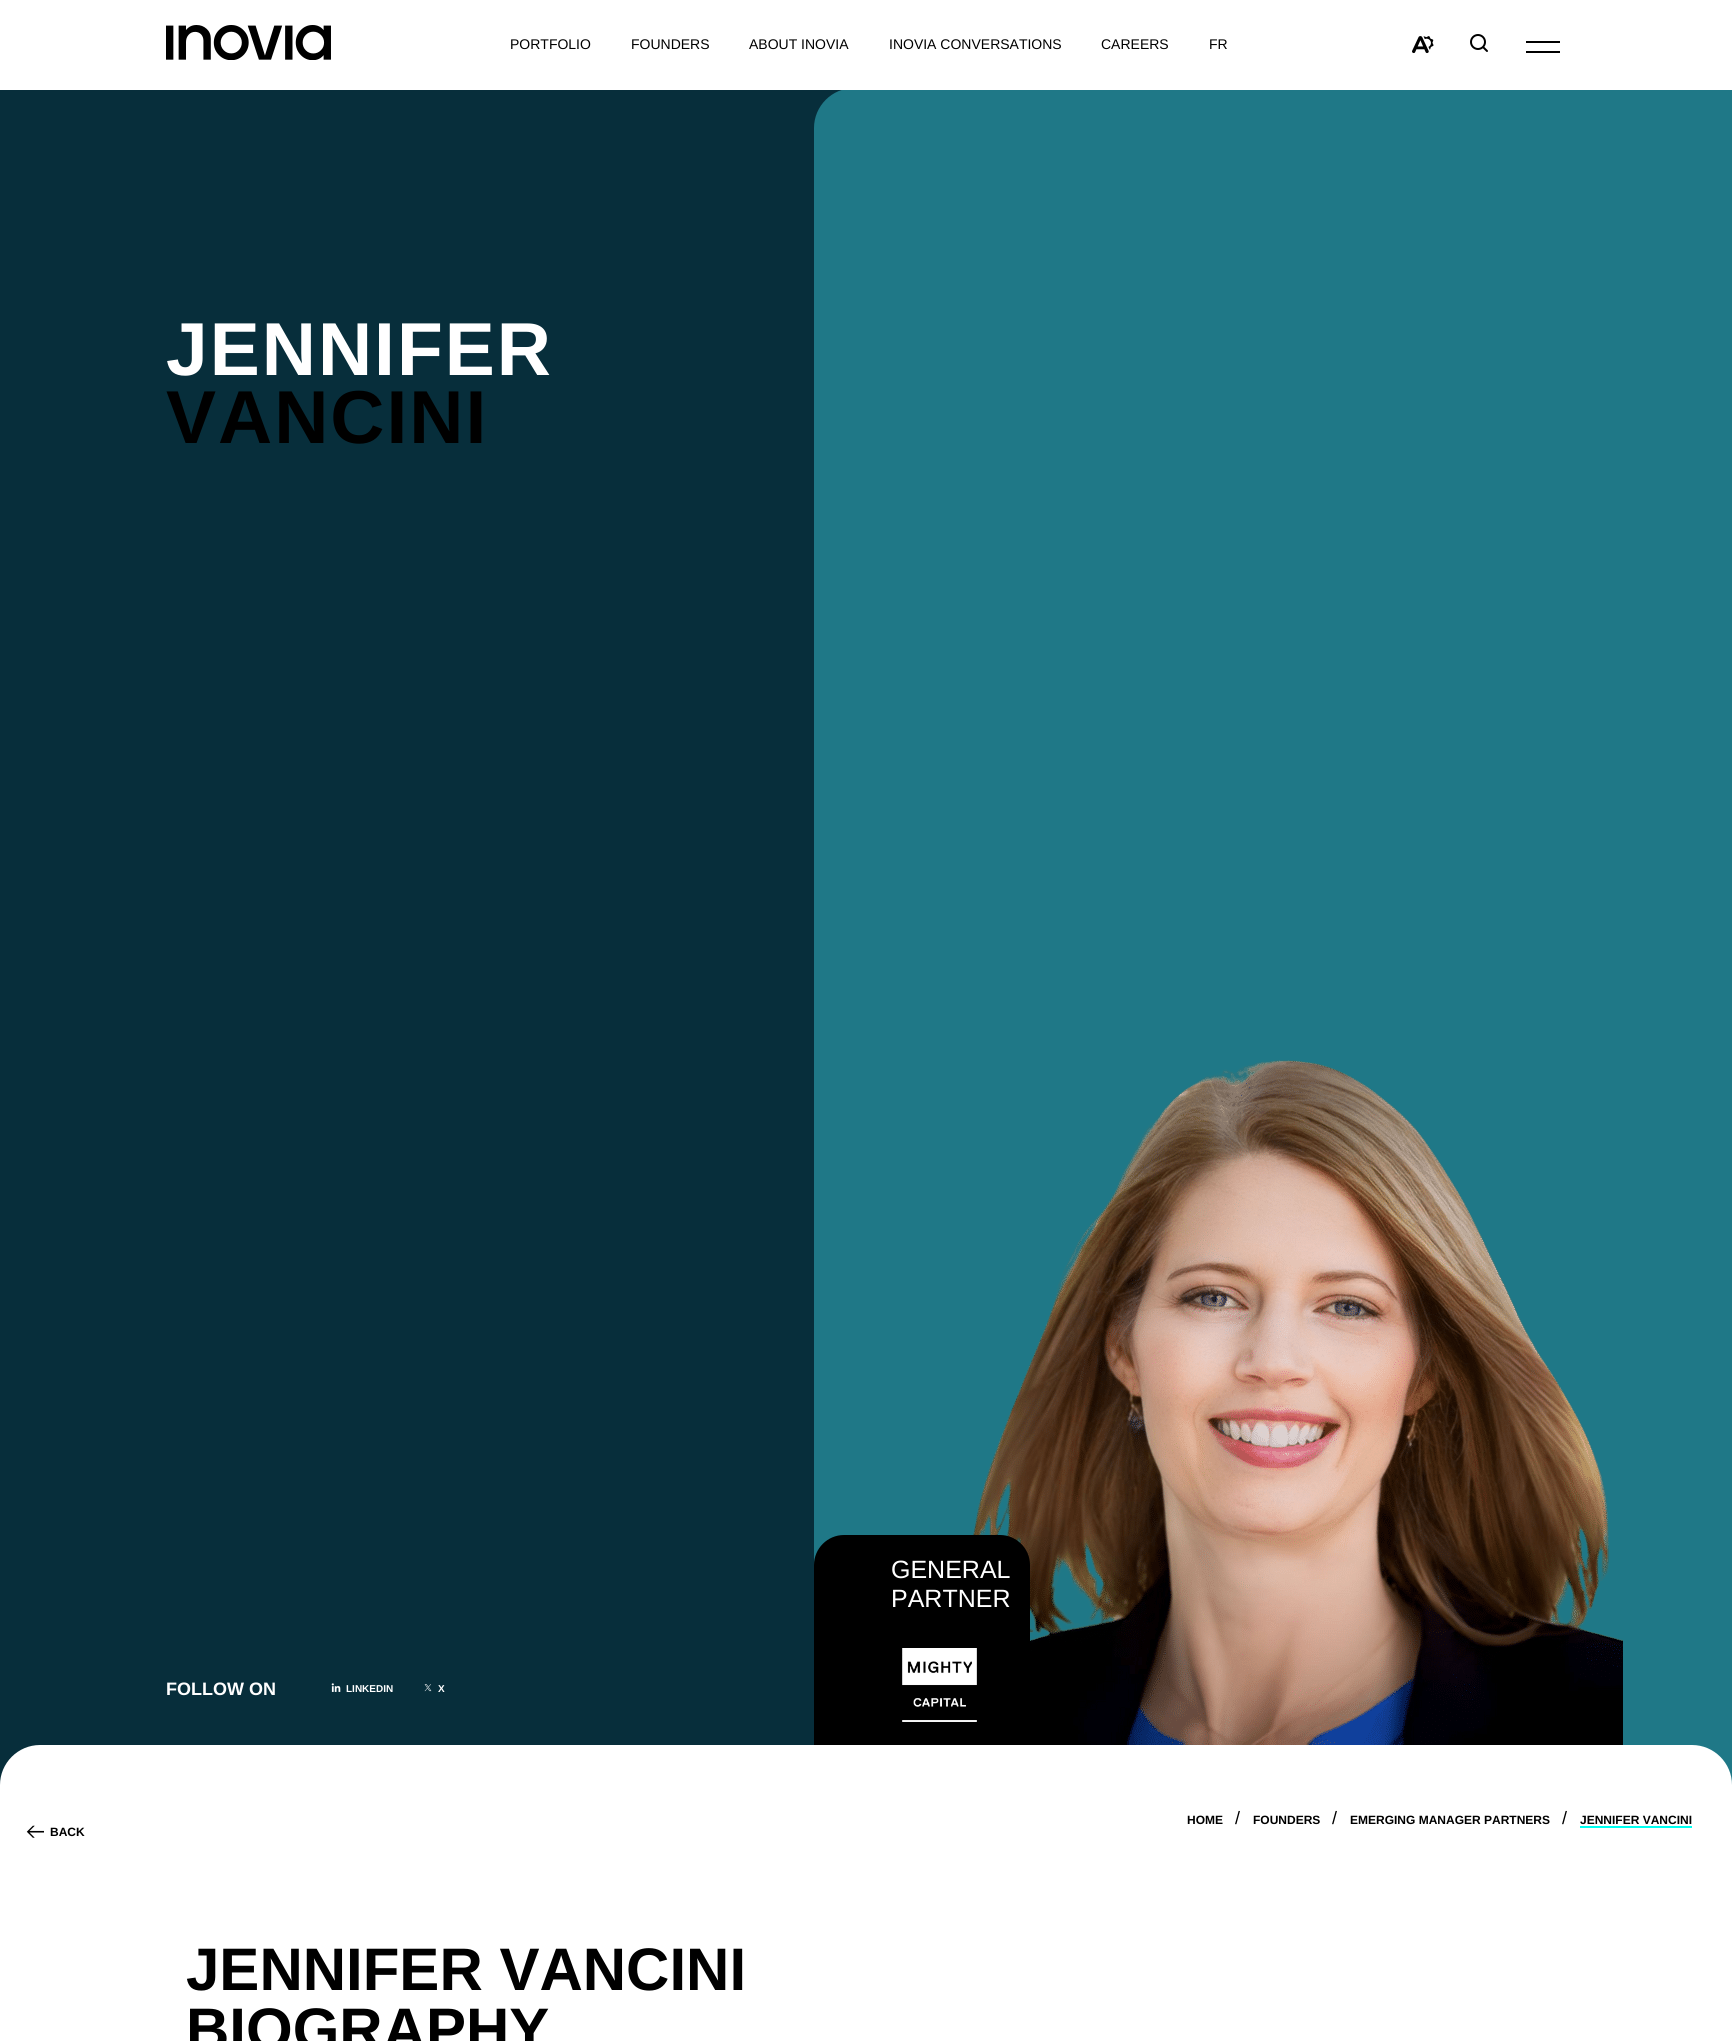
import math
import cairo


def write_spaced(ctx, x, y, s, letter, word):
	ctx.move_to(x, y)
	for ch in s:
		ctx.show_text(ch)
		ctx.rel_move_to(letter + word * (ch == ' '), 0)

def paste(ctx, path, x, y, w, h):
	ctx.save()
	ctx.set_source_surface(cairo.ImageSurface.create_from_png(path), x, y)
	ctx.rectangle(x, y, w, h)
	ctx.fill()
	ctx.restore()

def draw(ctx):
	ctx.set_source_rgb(0.031, 0.18, 0.231)
	ctx.paint()
	ctx.set_source_rgb(0.122, 0.471, 0.529)
	ctx.new_path()
	ctx.move_to(854, 88)
	ctx.line_to(1732, 88)
	ctx.line_to(1732, 1805)
	ctx.line_to(814, 1805)
	ctx.line_to(814, 128)
	ctx.curve_to(814, 106, 832, 88, 854, 88)
	ctx.close_path()
	ctx.fill()
	ctx.set_source_rgb(1, 1, 1)
	ctx.rectangle(0, 0, 1732, 90)
	ctx.fill()
	paste(ctx, 'media/1.png', 166, 25, 165, 35)
	ctx.select_font_face('Liberation Sans')
	ctx.set_font_size(14)
	ctx.set_source_rgb(0, 0, 0)
	for x, y, s in [
		(510, 49, 'PORTFOLIO'),
		(631, 49, 'FOUNDERS'),
		(749, 49, 'ABOUT INOVIA'),
		(889, 49, 'INOVIA CONVERSATIONS'),
		(1101, 49, 'CAREERS'),
		(1209, 49, 'FR'),
	]:
		ctx.move_to(x, y)
		ctx.show_text(s)
	paste(ctx, 'media/2.png', 1412, 36, 22, 18)
	paste(ctx, 'media/3.png', 1470, 34, 18, 18)
	ctx.rectangle(1526, 51, 34, 2)
	ctx.fill()
	ctx.rectangle(1526, 41, 34, 2)
	ctx.fill()
	ctx.select_font_face('Liberation Sans', cairo.FONT_SLANT_NORMAL, cairo.FONT_WEIGHT_BOLD)
	ctx.set_font_size(75)
	ctx.set_source_rgb(1, 1, 1)
	write_spaced(ctx, 166, 375, 'JENNIFER', 2, 0)
	ctx.set_source_rgb(0, 0, 0)
	write_spaced(ctx, 166, 443, 'VANCINI', 2, 0)
	ctx.set_font_size(18)
	ctx.set_source_rgb(1, 1, 1)
	ctx.move_to(166, 1695)
	ctx.show_text('FOLLOW ON')
	paste(ctx, 'media/4.png', 331, 1683, 10, 9)
	ctx.set_font_size(10)
	ctx.move_to(346, 1692)
	ctx.show_text('LINKEDIN')
	paste(ctx, 'media/5.png', 424, 1684, 8, 8)
	ctx.move_to(438, 1692)
	ctx.show_text('X')
	paste(ctx, 'media/7.png', 973, 1060, 650, 685)
	ctx.set_source_rgb(0, 0, 0)
	ctx.new_path()
	ctx.move_to(844, 1535)
	ctx.line_to(1000, 1535)
	ctx.curve_to(1016.5, 1535, 1030, 1548.5, 1030, 1565)
	ctx.line_to(1030, 1745)
	ctx.line_to(814, 1745)
	ctx.line_to(814, 1565)
	ctx.curve_to(814, 1548.5, 827.5, 1535, 844, 1535)
	ctx.close_path()
	ctx.fill()
	ctx.select_font_face('Liberation Sans')
	ctx.set_font_size(25)
	ctx.set_source_rgb(1, 1, 1)
	ctx.move_to(891, 1578)
	ctx.show_text('GENERAL')
	ctx.move_to(891, 1607)
	ctx.show_text('PARTNER')
	paste(ctx, 'media/6.png', 902, 1648, 75, 74)
	ctx.new_path()
	ctx.move_to(40, 1745)
	ctx.line_to(1692, 1745)
	ctx.curve_to(1714, 1745, 1732, 1763, 1732, 1785)
	ctx.line_to(1732, 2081)
	ctx.line_to(0, 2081)
	ctx.line_to(0, 1785)
	ctx.curve_to(0, 1763, 18, 1745, 40, 1745)
	ctx.close_path()
	ctx.fill()
	ctx.select_font_face('Liberation Sans', cairo.FONT_SLANT_NORMAL, cairo.FONT_WEIGHT_BOLD)
	ctx.set_font_size(12)
	ctx.set_source_rgb(0, 0, 0)
	ctx.move_to(1187, 1824)
	ctx.show_text('HOME')
	ctx.select_font_face('Liberation Sans')
	ctx.set_font_size(18)
	ctx.move_to(1235, 1824)
	ctx.show_text('/')
	ctx.select_font_face('Liberation Sans', cairo.FONT_SLANT_NORMAL, cairo.FONT_WEIGHT_BOLD)
	ctx.set_font_size(12)
	ctx.move_to(1253, 1824)
	ctx.show_text('FOUNDERS')
	ctx.select_font_face('Liberation Sans')
	ctx.set_font_size(18)
	ctx.move_to(1332, 1824)
	ctx.show_text('/')
	ctx.select_font_face('Liberation Sans', cairo.FONT_SLANT_NORMAL, cairo.FONT_WEIGHT_BOLD)
	ctx.set_font_size(12)
	ctx.move_to(1350, 1824)
	ctx.show_text('EMERGING MANAGER PARTNERS')
	ctx.select_font_face('Liberation Sans')
	ctx.set_font_size(18)
	ctx.move_to(1562, 1824)
	ctx.show_text('/')
	ctx.select_font_face('Liberation Sans', cairo.FONT_SLANT_NORMAL, cairo.FONT_WEIGHT_BOLD)
	ctx.set_font_size(12)
	ctx.move_to(1580, 1824)
	ctx.show_text('JENNIFER VANCINI')
	ctx.set_source_rgb(0, 1, 0.945)
	ctx.rectangle(1580, 1826, 112, 2)
	ctx.fill()
	paste(ctx, 'media/8.png', 26, 1825, 18, 13)
	ctx.set_source_rgb(0, 0, 0)
	ctx.move_to(50, 1836)
	ctx.show_text('BACK')
	ctx.set_font_size(60)
	ctx.move_to(186, 1990)
	ctx.show_text('JENNIFER VANCINI')
	ctx.move_to(186, 2050)
	ctx.show_text('BIOGRAPHY')


surface = cairo.ImageSurface(cairo.FORMAT_RGB24, 1732, 2041)
ctx = cairo.Context(surface)
options = cairo.FontOptions()
options.set_hint_metrics(cairo.HINT_METRICS_OFF)
options.set_hint_style(cairo.HINT_STYLE_NONE)
ctx.set_font_options(options)
ctx.set_miter_limit(4)
draw(ctx)
surface.write_to_png('image.png')
